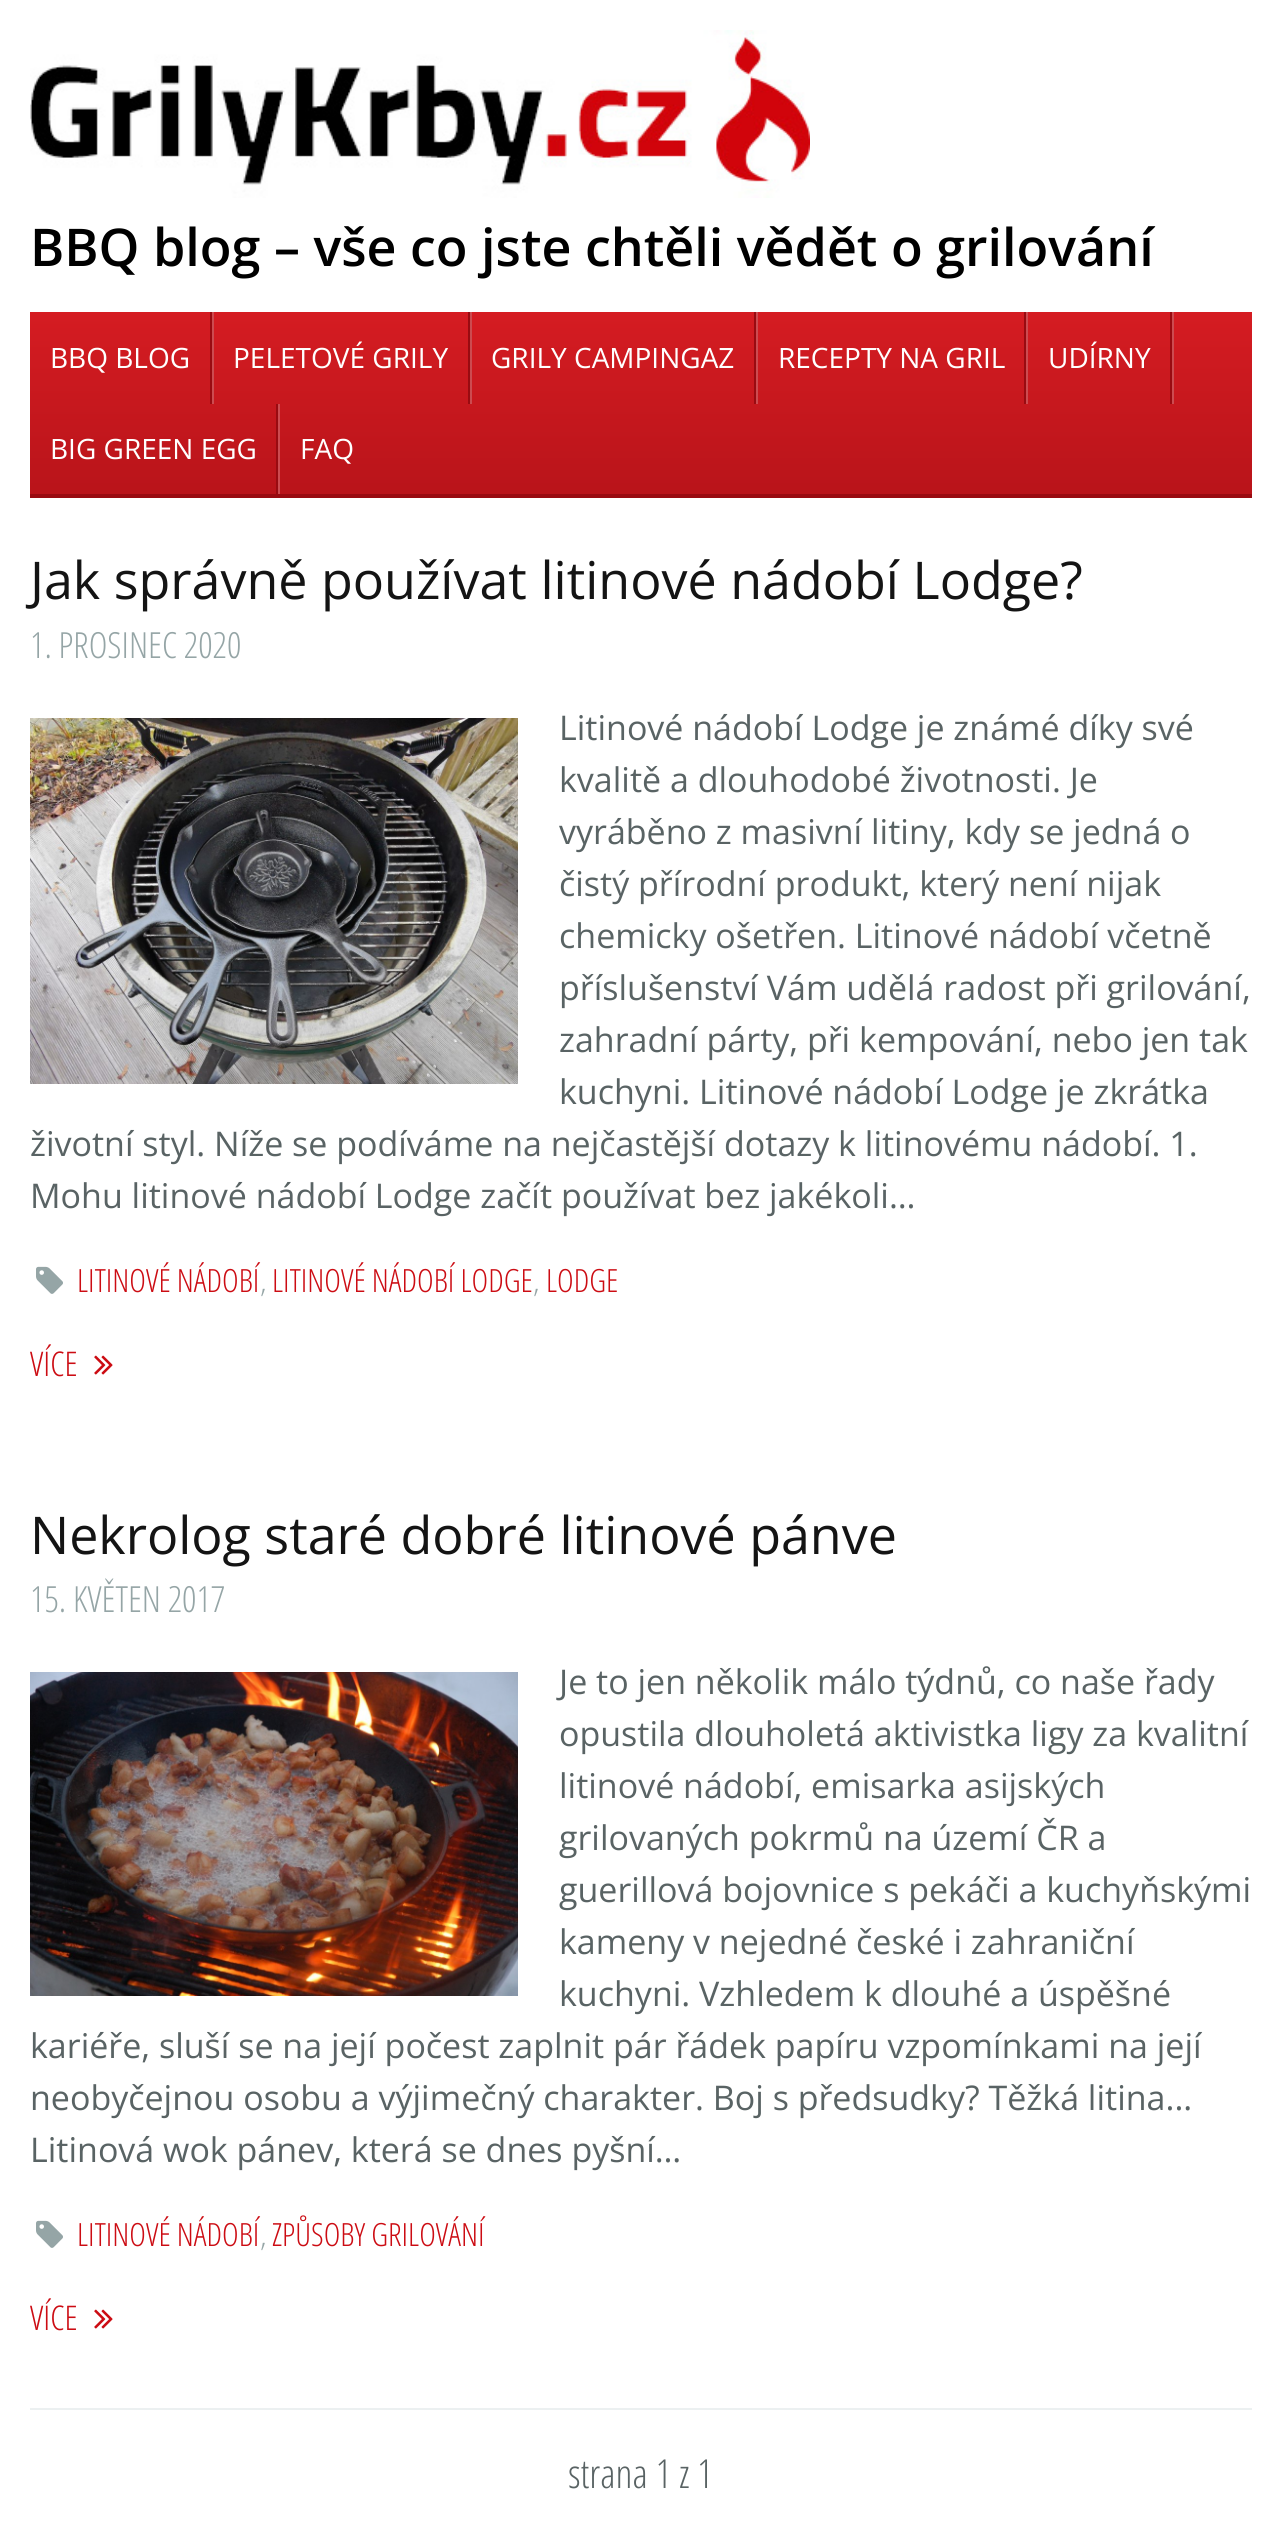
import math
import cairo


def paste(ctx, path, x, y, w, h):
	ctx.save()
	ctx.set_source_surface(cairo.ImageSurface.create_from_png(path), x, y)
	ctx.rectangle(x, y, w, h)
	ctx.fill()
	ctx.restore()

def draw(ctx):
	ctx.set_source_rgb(1, 1, 1)
	ctx.paint()
	paste(ctx, 'media/1.png', 30, 30, 780, 168)
	ctx.select_font_face('Open Sans SemiBold')
	ctx.set_font_size(52)
	ctx.set_source_rgb(0, 0, 0)
	ctx.move_to(30, 266)
	ctx.show_text('BBQ blog – vše co jste chtěli vědět o grilování')
	gradient = cairo.LinearGradient(641, 312, 641, 494)
	gradient.add_color_stop_rgba(0, 0.835, 0.11, 0.133, 1)
	gradient.add_color_stop_rgba(1, 0.725, 0.078, 0.102, 1)
	ctx.set_source(gradient)
	ctx.rectangle(30, 312, 1222, 182)
	ctx.fill()
	ctx.set_source_rgb(0.6, 0.043, 0.067)
	ctx.rectangle(30, 494, 1222, 4)
	ctx.fill()
	ctx.set_source_rgb(0.8, 0.294, 0.314)
	ctx.rectangle(212, 312, 2, 92)
	ctx.fill()
	ctx.set_source_rgb(0.6, 0.043, 0.067)
	ctx.rectangle(210, 312, 2, 92)
	ctx.fill()
	ctx.select_font_face('Open Sans')
	ctx.set_font_size(28)
	ctx.set_source_rgb(1, 1, 1)
	ctx.move_to(50, 368)
	ctx.show_text('BBQ BLOG')
	ctx.set_source_rgb(0.8, 0.294, 0.314)
	ctx.rectangle(470, 312, 2, 92)
	ctx.fill()
	ctx.set_source_rgb(0.6, 0.043, 0.067)
	ctx.rectangle(468, 312, 2, 92)
	ctx.fill()
	ctx.set_source_rgb(1, 1, 1)
	ctx.move_to(233, 368)
	ctx.show_text('PELETOVÉ GRILY')
	ctx.set_source_rgb(0.8, 0.294, 0.314)
	ctx.rectangle(756, 312, 2, 92)
	ctx.fill()
	ctx.set_source_rgb(0.6, 0.043, 0.067)
	ctx.rectangle(754, 312, 2, 92)
	ctx.fill()
	ctx.set_source_rgb(1, 1, 1)
	ctx.move_to(491, 368)
	ctx.show_text('GRILY CAMPINGAZ')
	ctx.set_source_rgb(0.8, 0.294, 0.314)
	ctx.rectangle(1026, 312, 2, 92)
	ctx.fill()
	ctx.set_source_rgb(0.6, 0.043, 0.067)
	ctx.rectangle(1024, 312, 2, 92)
	ctx.fill()
	ctx.set_source_rgb(1, 1, 1)
	ctx.move_to(778, 368)
	ctx.show_text('RECEPTY NA GRIL')
	ctx.set_source_rgb(0.8, 0.294, 0.314)
	ctx.rectangle(1172, 312, 2, 92)
	ctx.fill()
	ctx.set_source_rgb(0.6, 0.043, 0.067)
	ctx.rectangle(1170, 312, 2, 92)
	ctx.fill()
	ctx.set_source_rgb(1, 1, 1)
	ctx.move_to(1048, 368)
	ctx.show_text('UDÍRNY')
	ctx.set_source_rgb(0.8, 0.294, 0.314)
	ctx.rectangle(278, 404, 2, 90)
	ctx.fill()
	ctx.set_source_rgb(0.6, 0.043, 0.067)
	ctx.rectangle(276, 404, 2, 90)
	ctx.fill()
	ctx.set_source_rgb(1, 1, 1)
	ctx.move_to(50, 459)
	ctx.show_text('BIG GREEN EGG')
	ctx.move_to(300, 459)
	ctx.show_text('FAQ')
	ctx.set_font_size(52)
	ctx.set_source_rgb(0.082, 0.082, 0.082)
	ctx.move_to(30, 599)
	ctx.show_text('Jak správně používat litinové nádobí Lodge?')
	ctx.select_font_face('Open Sans Condensed Light')
	ctx.set_font_size(36)
	ctx.set_source_rgb(0.584, 0.647, 0.651)
	ctx.move_to(30, 658)
	ctx.show_text('1. PROSINEC 2020')
	ctx.select_font_face('Open Sans')
	ctx.set_font_size(34)
	ctx.set_source_rgb(0.349, 0.388, 0.392)
	for x, y, s in [
		(559, 740, 'Litinové nádobí Lodge je známé díky své'),
		(559, 792, 'kvalitě a dlouhodobé životnosti. Je'),
		(559, 844, 'vyráběno z masivní litiny, kdy se jedná o'),
		(559, 896, 'čistý přírodní produkt, který není nijak'),
		(559, 948, 'chemicky ošetřen. Litinové nádobí včetně'),
		(559, 1000, 'příslušenství Vám udělá radost při grilování,'),
		(559, 1052, 'zahradní párty, při kempování, nebo jen tak'),
		(559, 1104, 'kuchyni. Litinové nádobí Lodge je zkrátka'),
		(30, 1156, 'životní styl. Níže se podíváme na nejčastější dotazy k litinovému nádobí. 1.'),
		(30, 1208, 'Mohu litinové nádobí Lodge začít používat bez jakékoli…'),
	]:
		ctx.move_to(x, y)
		ctx.show_text(s)
	paste(ctx, 'media/2.png', 36, 1266, 27, 28)
	ctx.select_font_face('Open Sans Condensed Light')
	ctx.set_font_size(32)
	ctx.set_source_rgb(0.8, 0.047, 0.075)
	ctx.move_to(77, 1292)
	ctx.show_text('LITINOVÉ NÁDOBÍ')
	ctx.set_source_rgb(0.584, 0.647, 0.651)
	ctx.move_to(260, 1292)
	ctx.show_text(',')
	ctx.set_source_rgb(0.8, 0.047, 0.075)
	ctx.move_to(272, 1292)
	ctx.show_text('LITINOVÉ NÁDOBÍ LODGE')
	ctx.set_source_rgb(0.584, 0.647, 0.651)
	ctx.move_to(533, 1292)
	ctx.show_text(',')
	ctx.set_source_rgb(0.8, 0.047, 0.075)
	ctx.move_to(546, 1292)
	ctx.show_text('LODGE')
	ctx.set_font_size(34)
	ctx.move_to(30, 1376)
	ctx.show_text('VÍCE')
	paste(ctx, 'media/3.png', 94, 1355, 19, 20)
	paste(ctx, 'media/4.png', 30, 718, 488, 366)
	ctx.select_font_face('Open Sans')
	ctx.set_font_size(52)
	ctx.set_source_rgb(0.082, 0.082, 0.082)
	ctx.move_to(30, 1554)
	ctx.show_text('Nekrolog staré dobré litinové pánve')
	ctx.select_font_face('Open Sans Condensed Light')
	ctx.set_font_size(36)
	ctx.set_source_rgb(0.584, 0.647, 0.651)
	ctx.move_to(30, 1612)
	ctx.show_text('15. KVĚTEN 2017')
	ctx.select_font_face('Open Sans')
	ctx.set_font_size(34)
	ctx.set_source_rgb(0.349, 0.388, 0.392)
	for x, y, s in [
		(559, 1694, 'Je to jen několik málo týdnů, co naše řady'),
		(559, 1746, 'opustila dlouholetá aktivistka ligy za kvalitní'),
		(559, 1798, 'litinové nádobí, emisarka asijských'),
		(559, 1850, 'grilovaných pokrmů na území ČR a'),
		(559, 1902, 'guerillová bojovnice s pekáči a kuchyňskými'),
		(559, 1954, 'kameny v nejedné české i zahraniční'),
		(559, 2006, 'kuchyni. Vzhledem k dlouhé a úspěšné'),
		(30, 2058, 'kariéře, sluší se na její počest zaplnit pár řádek papíru vzpomínkami na její'),
		(30, 2110, 'neobyčejnou osobu a výjimečný charakter. Boj s předsudky? Těžká litina...'),
		(30, 2162, 'Litinová wok pánev, která se dnes pyšní…'),
	]:
		ctx.move_to(x, y)
		ctx.show_text(s)
	paste(ctx, 'media/2.png', 36, 2220, 27, 28)
	ctx.select_font_face('Open Sans Condensed Light')
	ctx.set_font_size(32)
	ctx.set_source_rgb(0.8, 0.047, 0.075)
	ctx.move_to(77, 2246)
	ctx.show_text('LITINOVÉ NÁDOBÍ')
	ctx.set_source_rgb(0.584, 0.647, 0.651)
	ctx.move_to(260, 2246)
	ctx.show_text(',')
	ctx.set_source_rgb(0.8, 0.047, 0.075)
	ctx.move_to(272, 2246)
	ctx.show_text('ZPŮSOBY GRILOVÁNÍ')
	ctx.set_font_size(34)
	ctx.move_to(30, 2330)
	ctx.show_text('VÍCE')
	paste(ctx, 'media/3.png', 94, 2309, 19, 20)
	paste(ctx, 'media/5.png', 30, 1672, 488, 324)
	ctx.set_source_rgb(0.925, 0.941, 0.945)
	ctx.rectangle(30, 2408, 1222, 2)
	ctx.fill()
	ctx.set_font_size(40)
	ctx.set_source_rgb(0.349, 0.388, 0.392)
	ctx.move_to(568, 2488)
	ctx.show_text('strana 1 z 1')


surface = cairo.ImageSurface(cairo.FORMAT_RGB24, 1281, 2532)
ctx = cairo.Context(surface)
options = cairo.FontOptions()
options.set_hint_metrics(cairo.HINT_METRICS_OFF)
options.set_hint_style(cairo.HINT_STYLE_NONE)
ctx.set_font_options(options)
ctx.set_miter_limit(4)
draw(ctx)
surface.write_to_png('image.png')
